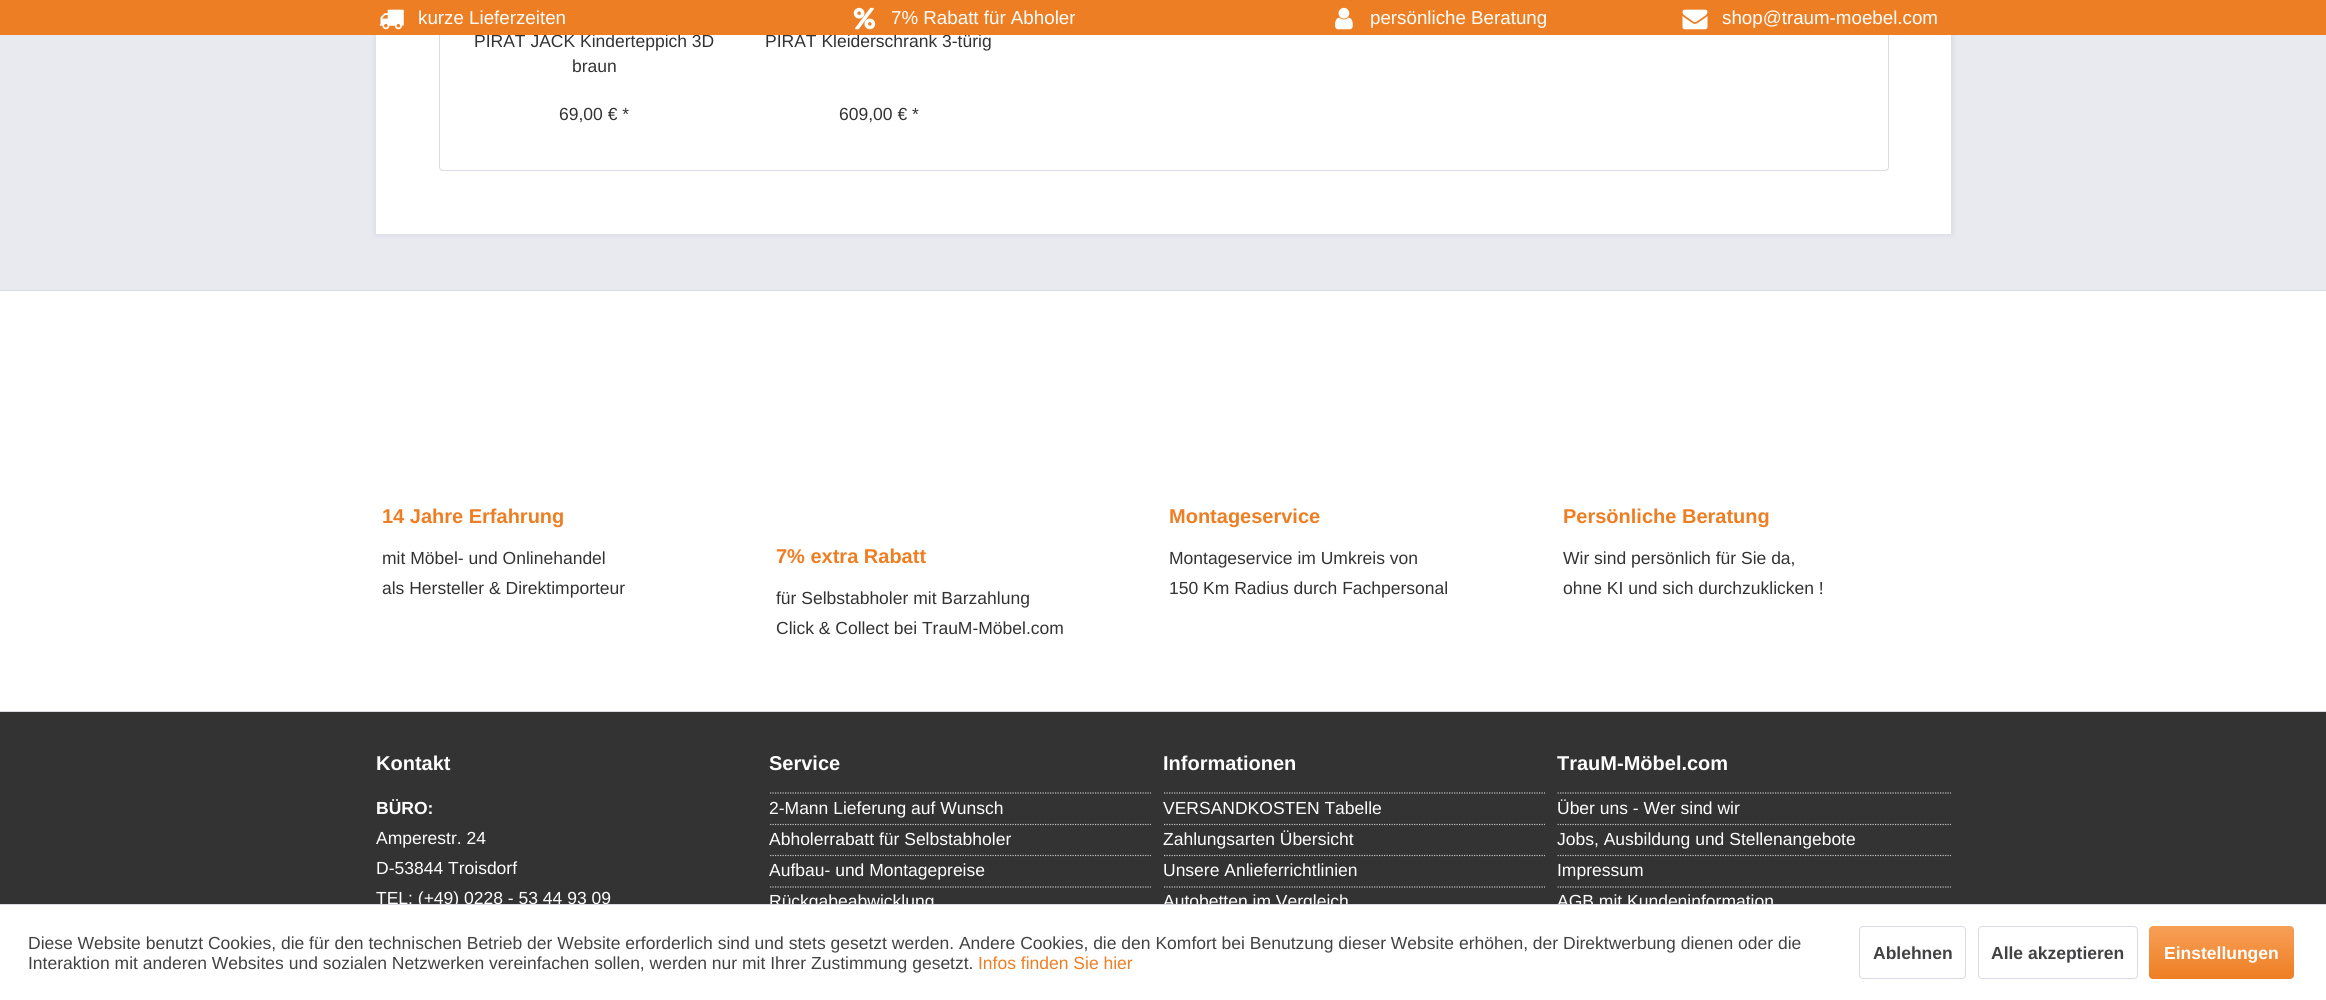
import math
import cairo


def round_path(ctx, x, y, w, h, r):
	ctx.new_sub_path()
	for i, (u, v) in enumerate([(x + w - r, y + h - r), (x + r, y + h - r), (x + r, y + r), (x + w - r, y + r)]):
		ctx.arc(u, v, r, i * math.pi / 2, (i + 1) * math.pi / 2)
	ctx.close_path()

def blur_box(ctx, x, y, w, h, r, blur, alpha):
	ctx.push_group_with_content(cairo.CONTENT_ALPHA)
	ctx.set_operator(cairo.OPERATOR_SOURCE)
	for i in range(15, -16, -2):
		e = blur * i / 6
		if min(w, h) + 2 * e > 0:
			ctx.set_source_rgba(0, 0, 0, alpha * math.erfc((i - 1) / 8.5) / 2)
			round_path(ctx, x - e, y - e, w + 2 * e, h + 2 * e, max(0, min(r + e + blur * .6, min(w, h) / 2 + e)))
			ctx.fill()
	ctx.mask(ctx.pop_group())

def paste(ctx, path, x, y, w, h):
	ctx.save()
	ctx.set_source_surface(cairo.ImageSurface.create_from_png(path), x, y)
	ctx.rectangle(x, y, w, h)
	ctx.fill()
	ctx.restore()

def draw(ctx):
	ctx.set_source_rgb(0.914, 0.914, 0.941)
	ctx.paint()
	ctx.set_source_rgb(0.855, 0.855, 0.898)
	blur_box(ctx, 375, -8, 1578, 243, 0, 2.5, 1)
	ctx.set_source_rgb(1, 1, 1)
	ctx.rectangle(376, 35, 1575, 199)
	ctx.fill()
	round_path(ctx, 439.5, -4.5, 1449, 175, 3.5)
	ctx.set_source_rgb(0.855, 0.855, 0.898)
	ctx.set_line_width(1)
	ctx.stroke()
	ctx.select_font_face('Liberation Sans')
	ctx.set_font_size(17.5)
	ctx.set_source_rgb(0.2, 0.2, 0.2)
	ctx.move_to(474, 47)
	ctx.show_text('PIRAT JACK Kinderteppich 3D')
	ctx.move_to(765, 47)
	ctx.show_text('PIRAT Kleiderschrank 3-türig')
	ctx.set_source_rgb(0.933, 0.494, 0.137)
	ctx.rectangle(0, 0, 2326, 35)
	ctx.fill()
	paste(ctx, 'media/1.png', 379, 9, 25, 21)
	ctx.set_font_size(18.75)
	ctx.set_source_rgb(1, 1, 1)
	ctx.move_to(418, 24)
	ctx.show_text('kurze Lieferzeiten')
	paste(ctx, 'media/2.png', 853, 7, 23, 23)
	ctx.move_to(891, 24)
	ctx.show_text('7% Rabatt für Abholer')
	paste(ctx, 'media/3.png', 1335, 7, 18, 23)
	ctx.move_to(1370, 24)
	ctx.show_text('persönliche Beratung')
	paste(ctx, 'media/4.png', 1682, 9, 26, 21)
	ctx.move_to(1722, 24)
	ctx.show_text('shop@traum-moebel.com')
	ctx.set_font_size(17.5)
	ctx.set_source_rgb(0.2, 0.2, 0.2)
	for x, y, s in [
		(572, 72, 'braun'),
		(559, 120, '69,00 € *'),
		(839, 120, '609,00 € *'),
	]:
		ctx.move_to(x, y)
		ctx.show_text(s)
	ctx.set_source_rgb(1, 1, 1)
	ctx.rectangle(0, 291, 2326, 420)
	ctx.fill()
	ctx.set_source_rgb(0.855, 0.855, 0.898)
	ctx.rectangle(0, 290, 2326, 1)
	ctx.fill()
	ctx.select_font_face('Liberation Sans', cairo.FONT_SLANT_NORMAL, cairo.FONT_WEIGHT_BOLD)
	ctx.set_font_size(20)
	ctx.set_source_rgb(0.933, 0.494, 0.137)
	ctx.move_to(382, 523)
	ctx.show_text('14 Jahre Erfahrung')
	ctx.select_font_face('Liberation Sans')
	ctx.set_font_size(17.5)
	ctx.set_source_rgb(0.2, 0.2, 0.2)
	ctx.move_to(382, 564)
	ctx.show_text('mit Möbel- und Onlinehandel')
	ctx.move_to(382, 594)
	ctx.show_text('als Hersteller & Direktimporteur')
	ctx.select_font_face('Liberation Sans', cairo.FONT_SLANT_NORMAL, cairo.FONT_WEIGHT_BOLD)
	ctx.set_font_size(20)
	ctx.set_source_rgb(0.933, 0.494, 0.137)
	ctx.move_to(776, 563)
	ctx.show_text('7% extra Rabatt')
	ctx.select_font_face('Liberation Sans')
	ctx.set_font_size(17.5)
	ctx.set_source_rgb(0.2, 0.2, 0.2)
	ctx.move_to(776, 604)
	ctx.show_text('für Selbstabholer mit Barzahlung')
	ctx.move_to(776, 634)
	ctx.show_text('Click & Collect bei TrauM-Möbel.com')
	ctx.select_font_face('Liberation Sans', cairo.FONT_SLANT_NORMAL, cairo.FONT_WEIGHT_BOLD)
	ctx.set_font_size(20)
	ctx.set_source_rgb(0.933, 0.494, 0.137)
	ctx.move_to(1169, 523)
	ctx.show_text('Montageservice')
	ctx.select_font_face('Liberation Sans')
	ctx.set_font_size(17.5)
	ctx.set_source_rgb(0.2, 0.2, 0.2)
	ctx.move_to(1169, 564)
	ctx.show_text('Montageservice im Umkreis von')
	ctx.move_to(1169, 594)
	ctx.show_text('150 Km Radius durch Fachpersonal')
	ctx.select_font_face('Liberation Sans', cairo.FONT_SLANT_NORMAL, cairo.FONT_WEIGHT_BOLD)
	ctx.set_font_size(20)
	ctx.set_source_rgb(0.933, 0.494, 0.137)
	ctx.move_to(1563, 523)
	ctx.show_text('Persönliche Beratung')
	ctx.select_font_face('Liberation Sans')
	ctx.set_font_size(17.5)
	ctx.set_source_rgb(0.2, 0.2, 0.2)
	ctx.move_to(1563, 564)
	ctx.show_text('Wir sind persönlich für Sie da,')
	ctx.move_to(1563, 594)
	ctx.show_text('ohne KI und sich durchzuklicken !')
	ctx.rectangle(0, 712, 2326, 192)
	ctx.fill()
	ctx.set_source_rgb(0.855, 0.855, 0.898)
	ctx.rectangle(0, 711, 2326, 1)
	ctx.fill()
	ctx.select_font_face('Liberation Sans', cairo.FONT_SLANT_NORMAL, cairo.FONT_WEIGHT_BOLD)
	ctx.set_font_size(20)
	ctx.set_source_rgb(1, 1, 1)
	ctx.move_to(376, 770)
	ctx.show_text('Kontakt')
	ctx.set_font_size(17.5)
	ctx.move_to(376, 814)
	ctx.show_text('BÜRO:')
	ctx.select_font_face('Liberation Sans')
	for x, y, s in [
		(376, 844, 'Amperestr. 24'),
		(376, 874, 'D-53844 Troisdorf'),
		(376, 904, 'TEL: (+49) 0228 - 53 44 93 09'),
	]:
		ctx.move_to(x, y)
		ctx.show_text(s)
	ctx.select_font_face('Liberation Sans', cairo.FONT_SLANT_NORMAL, cairo.FONT_WEIGHT_BOLD)
	ctx.set_font_size(20)
	ctx.move_to(769, 770)
	ctx.show_text('Service')
	ctx.new_path()
	ctx.move_to(770, 793)
	ctx.line_to(1151, 793)
	ctx.set_source_rgb(0.753, 0.753, 0.753)
	ctx.set_line_width(1.2)
	ctx.set_dash([1.25, 1.25])
	ctx.stroke()
	ctx.select_font_face('Liberation Sans')
	ctx.set_font_size(17.5)
	ctx.set_source_rgb(1, 1, 1)
	ctx.move_to(769, 814)
	ctx.show_text('2-Mann Lieferung auf Wunsch')
	ctx.new_path()
	ctx.move_to(770, 824.5)
	ctx.line_to(1151, 824.5)
	ctx.set_source_rgb(0.753, 0.753, 0.753)
	ctx.stroke()
	ctx.set_source_rgb(1, 1, 1)
	ctx.move_to(769, 845)
	ctx.show_text('Abholerrabatt für Selbstabholer')
	ctx.new_path()
	ctx.move_to(770, 855.5)
	ctx.line_to(1151, 855.5)
	ctx.set_source_rgb(0.753, 0.753, 0.753)
	ctx.stroke()
	ctx.set_source_rgb(1, 1, 1)
	ctx.move_to(769, 876)
	ctx.show_text('Aufbau- und Montagepreise')
	ctx.new_path()
	ctx.move_to(770, 887)
	ctx.line_to(1151, 887)
	ctx.set_source_rgb(0.753, 0.753, 0.753)
	ctx.stroke()
	ctx.set_source_rgb(1, 1, 1)
	ctx.move_to(769, 907)
	ctx.show_text('Rückgabeabwicklung')
	ctx.select_font_face('Liberation Sans', cairo.FONT_SLANT_NORMAL, cairo.FONT_WEIGHT_BOLD)
	ctx.set_font_size(20)
	ctx.move_to(1163, 770)
	ctx.show_text('Informationen')
	ctx.new_path()
	ctx.move_to(1164, 793)
	ctx.line_to(1545, 793)
	ctx.set_source_rgb(0.753, 0.753, 0.753)
	ctx.stroke()
	ctx.select_font_face('Liberation Sans')
	ctx.set_font_size(17.5)
	ctx.set_source_rgb(1, 1, 1)
	ctx.move_to(1163, 814)
	ctx.show_text('VERSANDKOSTEN Tabelle')
	ctx.new_path()
	ctx.move_to(1164, 824.5)
	ctx.line_to(1545, 824.5)
	ctx.set_source_rgb(0.753, 0.753, 0.753)
	ctx.stroke()
	ctx.set_source_rgb(1, 1, 1)
	ctx.move_to(1163, 845)
	ctx.show_text('Zahlungsarten Übersicht')
	ctx.new_path()
	ctx.move_to(1164, 855.5)
	ctx.line_to(1545, 855.5)
	ctx.set_source_rgb(0.753, 0.753, 0.753)
	ctx.stroke()
	ctx.set_source_rgb(1, 1, 1)
	ctx.move_to(1163, 876)
	ctx.show_text('Unsere Anlieferrichtlinien')
	ctx.new_path()
	ctx.move_to(1164, 887)
	ctx.line_to(1545, 887)
	ctx.set_source_rgb(0.753, 0.753, 0.753)
	ctx.stroke()
	ctx.set_source_rgb(1, 1, 1)
	ctx.move_to(1163, 907)
	ctx.show_text('Autobetten im Vergleich')
	ctx.select_font_face('Liberation Sans', cairo.FONT_SLANT_NORMAL, cairo.FONT_WEIGHT_BOLD)
	ctx.set_font_size(20)
	ctx.move_to(1557, 770)
	ctx.show_text('TrauM-Möbel.com')
	ctx.new_path()
	ctx.move_to(1557.5, 793)
	ctx.line_to(1951, 793)
	ctx.set_source_rgb(0.753, 0.753, 0.753)
	ctx.stroke()
	ctx.select_font_face('Liberation Sans')
	ctx.set_font_size(17.5)
	ctx.set_source_rgb(1, 1, 1)
	ctx.move_to(1557, 814)
	ctx.show_text('Über uns - Wer sind wir')
	ctx.new_path()
	ctx.move_to(1557.5, 824.5)
	ctx.line_to(1951, 824.5)
	ctx.set_source_rgb(0.753, 0.753, 0.753)
	ctx.stroke()
	ctx.set_source_rgb(1, 1, 1)
	ctx.move_to(1557, 845)
	ctx.show_text('Jobs, Ausbildung und Stellenangebote')
	ctx.new_path()
	ctx.move_to(1557.5, 855.5)
	ctx.line_to(1951, 855.5)
	ctx.set_source_rgb(0.753, 0.753, 0.753)
	ctx.stroke()
	ctx.set_source_rgb(1, 1, 1)
	ctx.move_to(1557, 876)
	ctx.show_text('Impressum')
	ctx.new_path()
	ctx.move_to(1557.5, 887)
	ctx.line_to(1951, 887)
	ctx.set_source_rgb(0.753, 0.753, 0.753)
	ctx.stroke()
	ctx.set_source_rgb(1, 1, 1)
	ctx.move_to(1557, 907)
	ctx.show_text('AGB mit Kundeninformation')
	ctx.rectangle(0, 905, 2326, 95)
	ctx.fill()
	ctx.set_source_rgb(0.855, 0.855, 0.898)
	ctx.rectangle(0, 904, 2326, 1)
	ctx.fill()
	ctx.set_source_rgb(0.259, 0.255, 0.263)
	ctx.move_to(28, 949)
	ctx.show_text('Diese Website benutzt Cookies, die für den technischen Betrieb der Website erforderlich sind und stets gesetzt werden. Andere Cookies, die den Komfort bei Benutzung dieser Website erhöhen, der Direktwerbung dienen oder die')
	ctx.move_to(28, 969)
	ctx.show_text('Interaktion mit anderen Websites und sozialen Netzwerken vereinfachen sollen, werden nur mit Ihrer Zustimmung gesetzt.')
	ctx.set_source_rgb(0.933, 0.494, 0.137)
	ctx.move_to(978, 969)
	ctx.show_text('Infos finden Sie hier')
	round_path(ctx, 1859.5, 926.5, 106, 52, 3.5)
	ctx.set_source_rgb(0.855, 0.855, 0.898)
	ctx.set_line_width(1)
	ctx.set_dash([])
	ctx.stroke()
	ctx.select_font_face('Liberation Sans', cairo.FONT_SLANT_NORMAL, cairo.FONT_WEIGHT_BOLD)
	ctx.set_source_rgb(0.259, 0.255, 0.263)
	ctx.move_to(1873, 959)
	ctx.show_text('Ablehnen')
	round_path(ctx, 1978.5, 926.5, 159, 52, 3.5)
	ctx.set_source_rgb(0.855, 0.855, 0.898)
	ctx.stroke()
	ctx.set_source_rgb(0.259, 0.255, 0.263)
	ctx.move_to(1991, 959)
	ctx.show_text('Alle akzeptieren')
	gradient = cairo.LinearGradient(2221, 926, 2221, 979)
	gradient.add_color_stop_rgba(0, 0.969, 0.624, 0.341, 1)
	gradient.add_color_stop_rgba(1, 0.933, 0.494, 0.137, 1)
	ctx.set_source(gradient)
	round_path(ctx, 2149, 926, 145, 53, 4)
	ctx.fill()
	ctx.set_source_rgb(1, 1, 1)
	ctx.move_to(2164, 959)
	ctx.show_text('Einstellungen')


surface = cairo.ImageSurface(cairo.FORMAT_RGB24, 2326, 1000)
ctx = cairo.Context(surface)
options = cairo.FontOptions()
options.set_hint_metrics(cairo.HINT_METRICS_OFF)
options.set_hint_style(cairo.HINT_STYLE_NONE)
ctx.set_font_options(options)
ctx.set_miter_limit(4)
draw(ctx)
surface.write_to_png('image.png')
